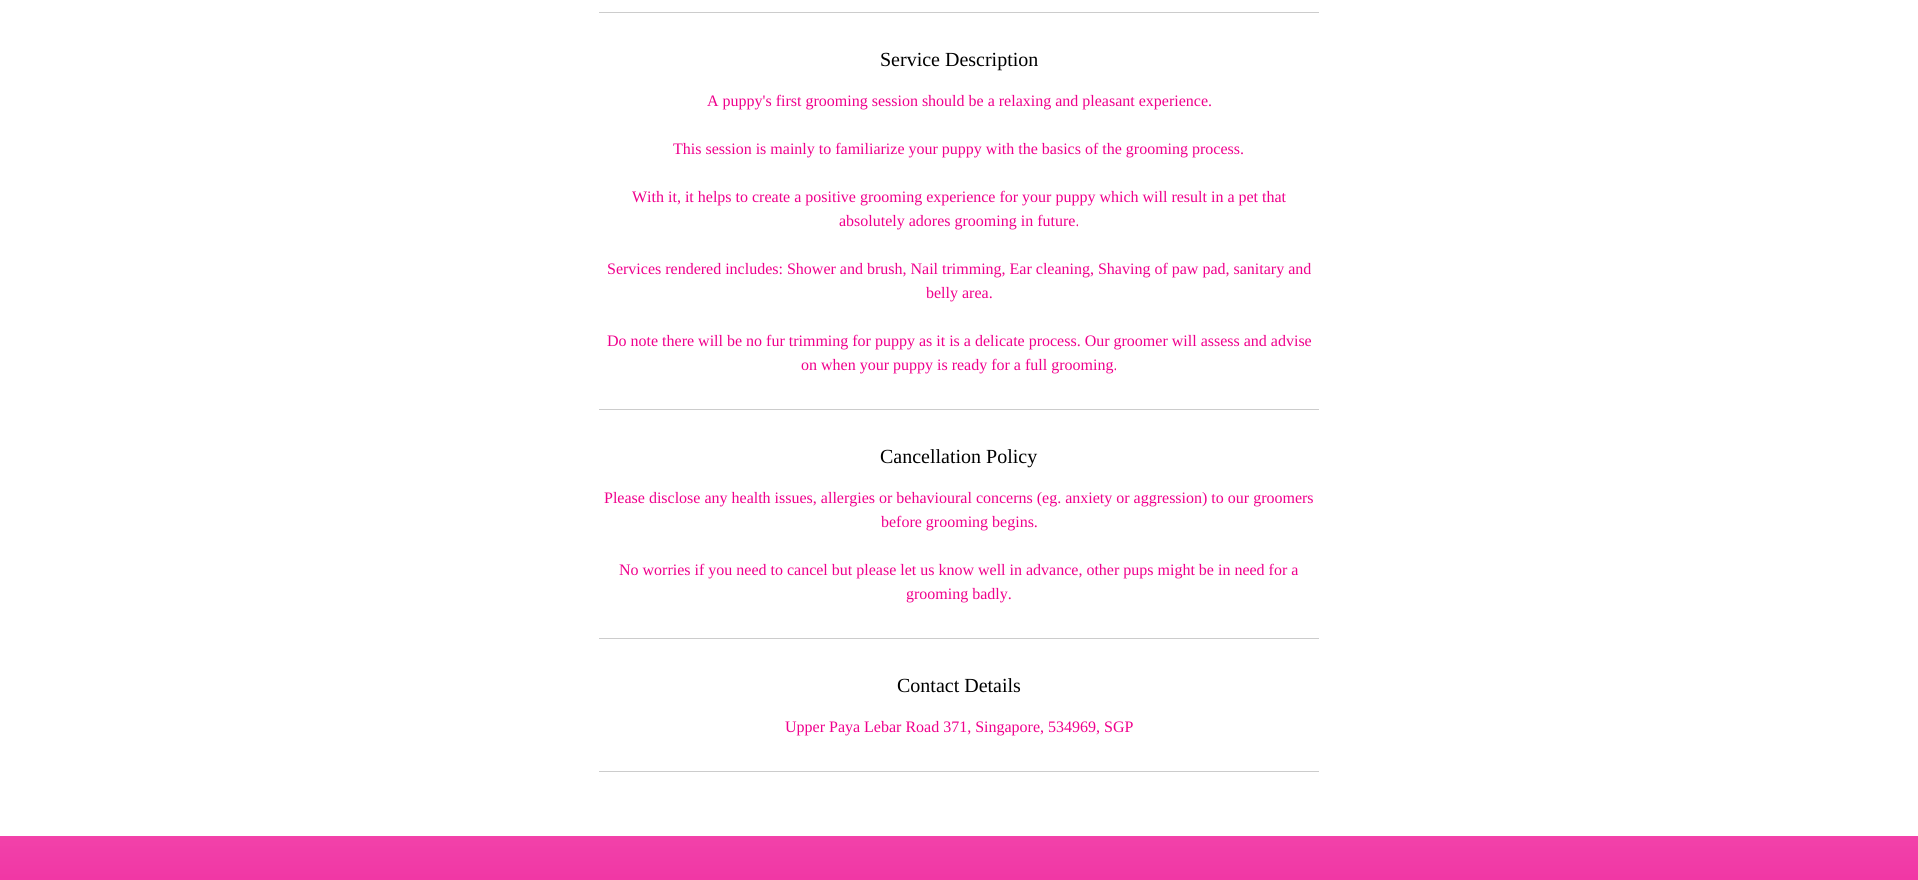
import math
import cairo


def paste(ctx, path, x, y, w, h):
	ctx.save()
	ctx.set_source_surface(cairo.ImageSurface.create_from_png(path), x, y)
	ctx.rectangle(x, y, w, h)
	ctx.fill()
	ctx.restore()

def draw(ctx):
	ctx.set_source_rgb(1, 1, 1)
	ctx.paint()
	ctx.set_source_rgb(0.8, 0.8, 0.8)
	ctx.rectangle(599, 12, 720, 1)
	ctx.fill()
	ctx.select_font_face('Liberation Serif')
	ctx.set_font_size(20)
	ctx.set_source_rgb(0, 0, 0)
	ctx.move_to(880, 66)
	ctx.show_text('Service Description')
	ctx.set_font_size(16)
	ctx.set_source_rgb(0.937, 0, 0.549)
	for x, y, s in [
		(707, 106, 'A puppy\'s first grooming session should be a relaxing and pleasant experience.'),
		(673, 154, 'This session is mainly to familiarize your puppy with the basics of the grooming process.'),
		(632, 202, 'With it, it helps to create a positive grooming experience for your puppy which will result in a pet that'),
		(839, 226, 'absolutely adores grooming in future.'),
		(607, 274, 'Services rendered includes: Shower and brush, Nail trimming, Ear cleaning, Shaving of paw pad, sanitary and'),
		(926, 298, 'belly area.'),
		(607, 346, 'Do note there will be no fur trimming for puppy as it is a delicate process. Our groomer will assess and advise'),
		(801, 370, 'on when your puppy is ready for a full grooming.'),
	]:
		ctx.move_to(x, y)
		ctx.show_text(s)
	ctx.set_source_rgb(0.8, 0.8, 0.8)
	ctx.rectangle(599, 409, 720, 1)
	ctx.fill()
	ctx.set_font_size(20)
	ctx.set_source_rgb(0, 0, 0)
	ctx.move_to(880, 463)
	ctx.show_text('Cancellation Policy')
	ctx.set_font_size(16)
	ctx.set_source_rgb(0.937, 0, 0.549)
	for x, y, s in [
		(604, 503, 'Please disclose any health issues, allergies or behavioural concerns (eg. anxiety or aggression) to our groomers'),
		(881, 527, 'before grooming begins.'),
		(619, 575, 'No worries if you need to cancel but please let us know well in advance, other pups might be in need for a'),
		(906, 599, 'grooming badly.'),
	]:
		ctx.move_to(x, y)
		ctx.show_text(s)
	ctx.set_source_rgb(0.8, 0.8, 0.8)
	ctx.rectangle(599, 638, 720, 1)
	ctx.fill()
	ctx.set_font_size(20)
	ctx.set_source_rgb(0, 0, 0)
	ctx.move_to(897, 692)
	ctx.show_text('Contact Details')
	ctx.set_font_size(16)
	ctx.set_source_rgb(0.937, 0, 0.549)
	ctx.move_to(785, 732)
	ctx.show_text('Upper Paya Lebar Road 371, Singapore, 534969, SGP')
	ctx.set_source_rgb(0.8, 0.8, 0.8)
	ctx.rectangle(599, 771, 720, 1)
	ctx.fill()
	ctx.set_source_rgb(0.929, 0, 0.549)
	ctx.rectangle(0, 836, 1918, 44)
	ctx.fill()
	paste(ctx, 'media/1.png', 0, 836, 1918, 44)


surface = cairo.ImageSurface(cairo.FORMAT_RGB24, 1918, 880)
ctx = cairo.Context(surface)
options = cairo.FontOptions()
options.set_hint_metrics(cairo.HINT_METRICS_OFF)
options.set_hint_style(cairo.HINT_STYLE_NONE)
ctx.set_font_options(options)
ctx.set_miter_limit(4)
draw(ctx)
surface.write_to_png('image.png')
